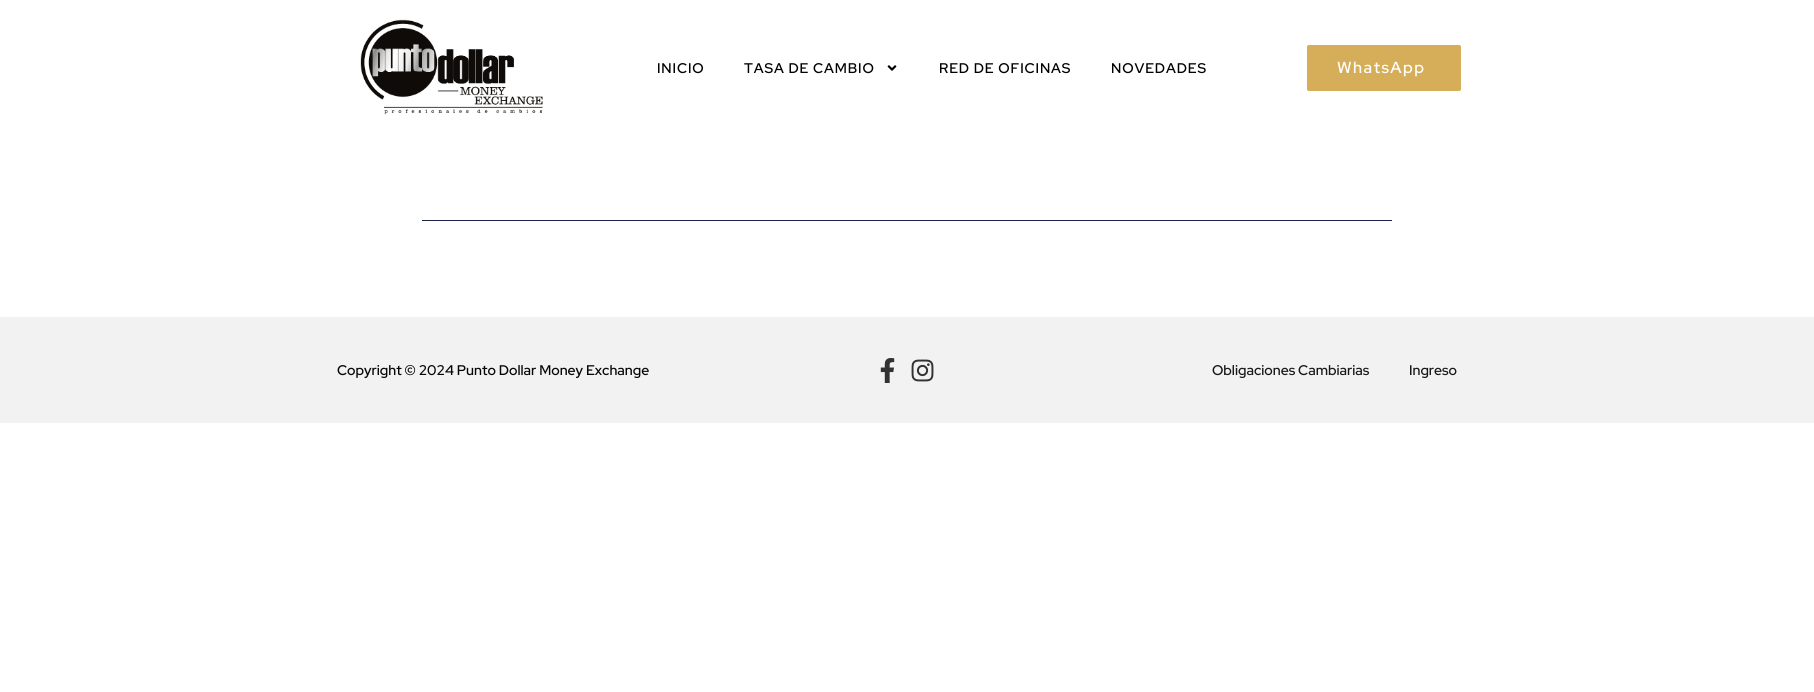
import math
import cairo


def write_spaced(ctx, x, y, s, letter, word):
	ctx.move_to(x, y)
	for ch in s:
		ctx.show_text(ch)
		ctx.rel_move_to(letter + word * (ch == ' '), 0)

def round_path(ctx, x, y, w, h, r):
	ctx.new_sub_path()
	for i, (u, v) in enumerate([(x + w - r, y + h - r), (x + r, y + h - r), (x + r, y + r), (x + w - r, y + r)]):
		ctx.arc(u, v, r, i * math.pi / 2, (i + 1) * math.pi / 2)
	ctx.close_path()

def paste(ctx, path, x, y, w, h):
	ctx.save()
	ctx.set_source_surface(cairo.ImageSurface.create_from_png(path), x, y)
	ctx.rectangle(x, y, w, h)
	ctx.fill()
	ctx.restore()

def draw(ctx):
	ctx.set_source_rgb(1, 1, 1)
	ctx.paint()
	paste(ctx, 'media/1.png', 360, 19, 183, 96)
	ctx.select_font_face('Red Hat Display SemiBold')
	ctx.set_font_size(14)
	ctx.set_source_rgb(0, 0, 0)
	write_spaced(ctx, 657, 73, 'INICIO', 0.9, 0)
	write_spaced(ctx, 744, 73, 'TASA DE CAMBIO', 0.9, 0)
	paste(ctx, 'media/2.png', 887, 65, 10, 6)
	write_spaced(ctx, 939, 73, 'RED DE OFICINAS', 0.9, 0)
	write_spaced(ctx, 1111, 73, 'NOVEDADES', 0.9, 0)
	ctx.set_source_rgb(0.839, 0.682, 0.349)
	round_path(ctx, 1307, 45, 154, 46, 2)
	ctx.fill()
	ctx.set_font_size(16)
	ctx.set_source_rgb(1, 1, 1)
	write_spaced(ctx, 1337, 73, 'WhatsApp', 1.5, 0)
	ctx.set_source_rgb(0.11, 0.141, 0.294)
	ctx.rectangle(422, 220, 970, 1)
	ctx.fill()
	ctx.set_source_rgb(0.949, 0.949, 0.949)
	ctx.rectangle(0, 317, 1814, 106)
	ctx.fill()
	ctx.set_font_size(14)
	ctx.set_source_rgb(0.031, 0.031, 0.031)
	ctx.move_to(337, 375)
	ctx.show_text('Copyright © 2024 Punto Dollar Money Exchange')
	paste(ctx, 'media/3.png', 880, 358, 15, 25)
	paste(ctx, 'media/4.png', 911, 359, 23, 23)
	ctx.set_source_rgb(0.094, 0.094, 0.094)
	ctx.move_to(1212, 375)
	ctx.show_text('Obligaciones Cambiarias')
	ctx.move_to(1409, 375)
	ctx.show_text('Ingreso')


surface = cairo.ImageSurface(cairo.FORMAT_RGB24, 1814, 692)
ctx = cairo.Context(surface)
options = cairo.FontOptions()
options.set_hint_metrics(cairo.HINT_METRICS_OFF)
options.set_hint_style(cairo.HINT_STYLE_NONE)
ctx.set_font_options(options)
ctx.set_miter_limit(4)
draw(ctx)
surface.write_to_png('image.png')
